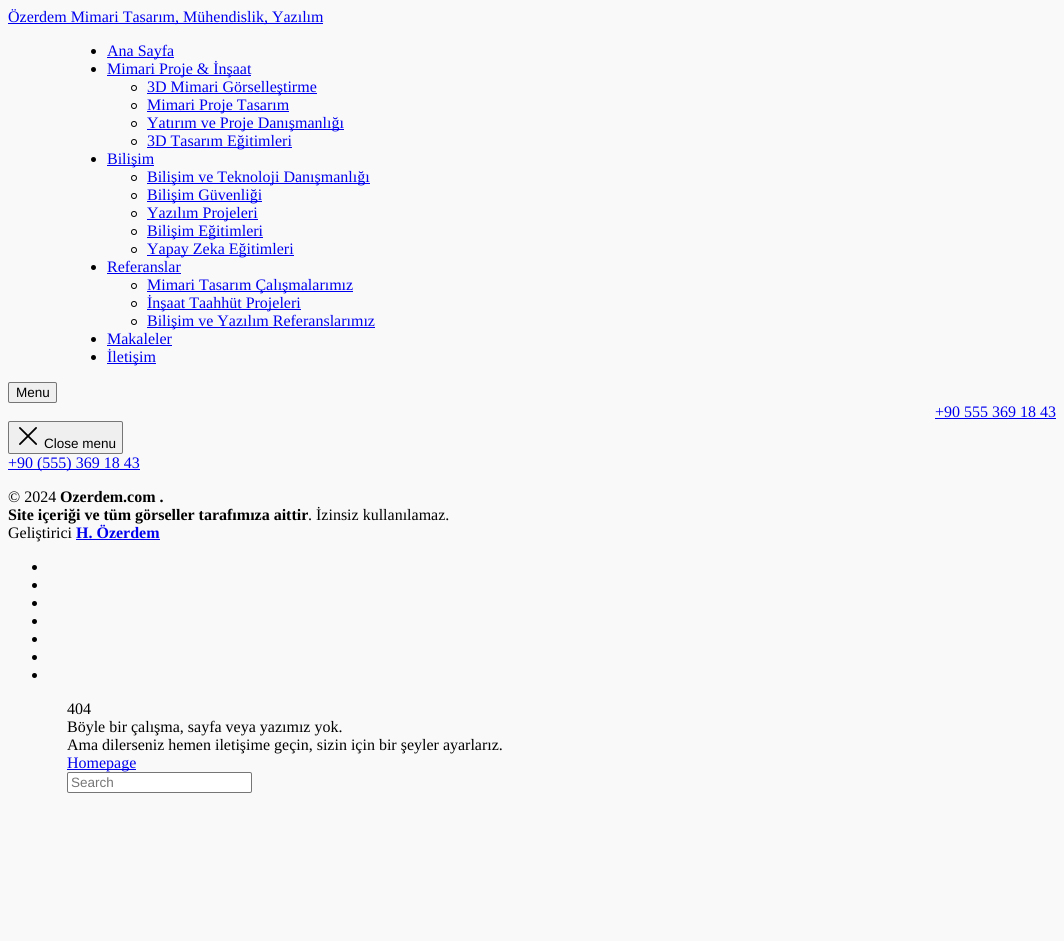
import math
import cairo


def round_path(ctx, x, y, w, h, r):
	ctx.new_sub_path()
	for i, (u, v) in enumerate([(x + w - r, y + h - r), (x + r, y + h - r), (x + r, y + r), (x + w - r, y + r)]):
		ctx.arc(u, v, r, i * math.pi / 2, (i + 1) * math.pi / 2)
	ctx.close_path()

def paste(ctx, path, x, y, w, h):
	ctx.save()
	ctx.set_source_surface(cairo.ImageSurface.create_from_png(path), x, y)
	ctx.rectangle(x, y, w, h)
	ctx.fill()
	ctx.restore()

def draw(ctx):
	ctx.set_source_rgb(0.976, 0.976, 0.976)
	ctx.paint()
	ctx.set_source_rgb(0, 0, 0.933)
	ctx.rectangle(8, 23, 315, 1)
	ctx.fill()
	ctx.select_font_face('Liberation Serif')
	ctx.set_font_size(16)
	ctx.move_to(8, 22)
	ctx.show_text('Özerdem Mimari Tasarım, Mühendislik, Yazılım')
	ctx.set_source_rgb(0, 0, 0)
	ctx.new_path()
	ctx.arc(93.5, 51.5, 2.5, 0, 2 * math.pi)
	ctx.fill()
	ctx.set_source_rgb(0, 0, 0.933)
	ctx.rectangle(107, 57, 67, 1)
	ctx.fill()
	ctx.move_to(107, 56)
	ctx.show_text('Ana Sayfa')
	ctx.set_source_rgb(0, 0, 0)
	ctx.new_path()
	ctx.arc(93.5, 69.5, 2.5, 0, 2 * math.pi)
	ctx.fill()
	ctx.set_source_rgb(0, 0, 0.933)
	ctx.rectangle(107, 75, 144, 1)
	ctx.fill()
	ctx.move_to(107, 74)
	ctx.show_text('Mimari Proje & İnşaat')
	ctx.new_path()
	ctx.arc(134, 88, 2.5, 0, 2 * math.pi)
	ctx.set_source_rgb(0, 0, 0)
	ctx.set_line_width(1)
	ctx.stroke()
	ctx.set_source_rgb(0, 0, 0.933)
	ctx.rectangle(147, 93, 170, 1)
	ctx.fill()
	ctx.move_to(147, 92)
	ctx.show_text('3D Mimari Görselleştirme')
	ctx.new_path()
	ctx.arc(134, 106, 2.5, 0, 2 * math.pi)
	ctx.set_source_rgb(0, 0, 0)
	ctx.stroke()
	ctx.set_source_rgb(0, 0, 0.933)
	ctx.rectangle(147, 111, 142, 1)
	ctx.fill()
	ctx.move_to(147, 110)
	ctx.show_text('Mimari Proje Tasarım')
	ctx.new_path()
	ctx.arc(134, 124, 2.5, 0, 2 * math.pi)
	ctx.set_source_rgb(0, 0, 0)
	ctx.stroke()
	ctx.set_source_rgb(0, 0, 0.933)
	ctx.rectangle(147, 129, 197, 1)
	ctx.fill()
	ctx.move_to(147, 128)
	ctx.show_text('Yatırım ve Proje Danışmanlığı')
	ctx.new_path()
	ctx.arc(134, 142, 2.5, 0, 2 * math.pi)
	ctx.set_source_rgb(0, 0, 0)
	ctx.stroke()
	ctx.set_source_rgb(0, 0, 0.933)
	ctx.rectangle(147, 147, 145, 1)
	ctx.fill()
	ctx.move_to(147, 146)
	ctx.show_text('3D Tasarım Eğitimleri')
	ctx.set_source_rgb(0, 0, 0)
	ctx.new_path()
	ctx.arc(93.5, 159.5, 2.5, 0, 2 * math.pi)
	ctx.fill()
	ctx.set_source_rgb(0, 0, 0.933)
	ctx.rectangle(107, 165, 47, 1)
	ctx.fill()
	ctx.move_to(107, 164)
	ctx.show_text('Bilişim')
	ctx.new_path()
	ctx.arc(134, 178, 2.5, 0, 2 * math.pi)
	ctx.set_source_rgb(0, 0, 0)
	ctx.stroke()
	ctx.set_source_rgb(0, 0, 0.933)
	ctx.rectangle(147, 183, 223, 1)
	ctx.fill()
	ctx.move_to(147, 182)
	ctx.show_text('Bilişim ve Teknoloji Danışmanlığı')
	ctx.new_path()
	ctx.arc(134, 196, 2.5, 0, 2 * math.pi)
	ctx.set_source_rgb(0, 0, 0)
	ctx.stroke()
	ctx.set_source_rgb(0, 0, 0.933)
	ctx.rectangle(147, 201, 115, 1)
	ctx.fill()
	ctx.move_to(147, 200)
	ctx.show_text('Bilişim Güvenliği')
	ctx.new_path()
	ctx.arc(134, 214, 2.5, 0, 2 * math.pi)
	ctx.set_source_rgb(0, 0, 0)
	ctx.stroke()
	ctx.set_source_rgb(0, 0, 0.933)
	ctx.rectangle(147, 219, 111, 1)
	ctx.fill()
	ctx.move_to(147, 218)
	ctx.show_text('Yazılım Projeleri')
	ctx.new_path()
	ctx.arc(134, 232, 2.5, 0, 2 * math.pi)
	ctx.set_source_rgb(0, 0, 0)
	ctx.stroke()
	ctx.set_source_rgb(0, 0, 0.933)
	ctx.rectangle(147, 237, 116, 1)
	ctx.fill()
	ctx.move_to(147, 236)
	ctx.show_text('Bilişim Eğitimleri')
	ctx.new_path()
	ctx.arc(134, 250, 2.5, 0, 2 * math.pi)
	ctx.set_source_rgb(0, 0, 0)
	ctx.stroke()
	ctx.set_source_rgb(0, 0, 0.933)
	ctx.rectangle(147, 255, 147, 1)
	ctx.fill()
	ctx.move_to(147, 254)
	ctx.show_text('Yapay Zeka Eğitimleri')
	ctx.set_source_rgb(0, 0, 0)
	ctx.new_path()
	ctx.arc(93.5, 267.5, 2.5, 0, 2 * math.pi)
	ctx.fill()
	ctx.set_source_rgb(0, 0, 0.933)
	ctx.move_to(107, 272)
	ctx.show_text('Referanslar')
	ctx.rectangle(107, 273, 74, 1)
	ctx.fill()
	ctx.arc(134, 286, 2.5, 0, 2 * math.pi)
	ctx.set_source_rgb(0, 0, 0)
	ctx.stroke()
	ctx.set_source_rgb(0, 0, 0.933)
	ctx.rectangle(147, 291, 206, 1)
	ctx.fill()
	ctx.move_to(147, 290)
	ctx.show_text('Mimari Tasarım Çalışmalarımız')
	ctx.new_path()
	ctx.arc(134, 304, 2.5, 0, 2 * math.pi)
	ctx.set_source_rgb(0, 0, 0)
	ctx.stroke()
	ctx.set_source_rgb(0, 0, 0.933)
	ctx.rectangle(147, 309, 154, 1)
	ctx.fill()
	ctx.move_to(147, 308)
	ctx.show_text('İnşaat Taahhüt Projeleri')
	ctx.new_path()
	ctx.arc(134, 322, 2.5, 0, 2 * math.pi)
	ctx.set_source_rgb(0, 0, 0)
	ctx.stroke()
	ctx.set_source_rgb(0, 0, 0.933)
	ctx.rectangle(147, 327, 228, 1)
	ctx.fill()
	ctx.move_to(147, 326)
	ctx.show_text('Bilişim ve Yazılım Referanslarımız')
	ctx.set_source_rgb(0, 0, 0)
	ctx.new_path()
	ctx.arc(93.5, 339.5, 2.5, 0, 2 * math.pi)
	ctx.fill()
	ctx.set_source_rgb(0, 0, 0.933)
	ctx.move_to(107, 344)
	ctx.show_text('Makaleler')
	ctx.rectangle(107, 345, 65, 1)
	ctx.fill()
	ctx.set_source_rgb(0, 0, 0)
	ctx.arc(93.5, 357.5, 2.5, 0, 2 * math.pi)
	ctx.fill()
	ctx.set_source_rgb(0, 0, 0.933)
	ctx.rectangle(107, 363, 49, 1)
	ctx.fill()
	ctx.move_to(107, 362)
	ctx.show_text('İletişim')
	ctx.set_source_rgb(0.937, 0.937, 0.937)
	round_path(ctx, 8.5, 382.5, 48, 20, 1.5)
	ctx.fill_preserve()
	ctx.set_source_rgb(0.463, 0.463, 0.463)
	ctx.stroke()
	ctx.select_font_face('Liberation Sans')
	ctx.set_font_size(13.5)
	ctx.set_source_rgb(0, 0, 0)
	ctx.move_to(16, 397)
	ctx.show_text('Menu')
	ctx.select_font_face('Liberation Serif')
	ctx.set_font_size(16)
	ctx.set_source_rgb(0, 0, 0.933)
	ctx.move_to(935, 417)
	ctx.show_text('+90 555 369 18 43')
	ctx.rectangle(935, 418, 121, 1)
	ctx.fill()
	ctx.set_source_rgb(0.937, 0.937, 0.937)
	round_path(ctx, 8.5, 421.5, 114, 32, 1.5)
	ctx.fill_preserve()
	ctx.set_source_rgb(0.463, 0.463, 0.463)
	ctx.stroke()
	paste(ctx, 'media/1.png', 19, 427, 18, 18)
	ctx.select_font_face('Liberation Sans')
	ctx.set_font_size(13.5)
	ctx.set_source_rgb(0, 0, 0)
	ctx.move_to(44, 448)
	ctx.show_text('Close menu')
	ctx.set_source_rgb(0, 0, 0.933)
	ctx.rectangle(8, 469, 132, 1)
	ctx.fill()
	ctx.select_font_face('Liberation Serif')
	ctx.set_font_size(16)
	ctx.move_to(8, 468)
	ctx.show_text('+90 (555) 369 18 43')
	ctx.set_source_rgb(0, 0, 0)
	ctx.move_to(8, 502)
	ctx.show_text('© 2024')
	ctx.select_font_face('Liberation Serif', cairo.FONT_SLANT_NORMAL, cairo.FONT_WEIGHT_BOLD)
	ctx.move_to(60, 502)
	ctx.show_text('Ozerdem.com .')
	ctx.move_to(8, 520)
	ctx.show_text('Site içeriği ve tüm görseller tarafımıza aittir')
	ctx.select_font_face('Liberation Serif')
	ctx.move_to(308, 520)
	ctx.show_text('. İzinsiz kullanılamaz.')
	ctx.move_to(8, 538)
	ctx.show_text('Geliştirici')
	ctx.select_font_face('Liberation Serif', cairo.FONT_SLANT_NORMAL, cairo.FONT_WEIGHT_BOLD)
	ctx.set_source_rgb(0, 0, 0.933)
	ctx.move_to(76, 538)
	ctx.show_text('H. Özerdem')
	ctx.rectangle(76, 539, 84, 1)
	ctx.fill()
	ctx.set_source_rgb(0, 0, 0)
	ctx.arc(34.5, 567.5, 2.5, 0, 2 * math.pi)
	ctx.fill()
	ctx.arc(34.5, 585.5, 2.5, 0, 2 * math.pi)
	ctx.fill()
	ctx.arc(34.5, 603.5, 2.5, 0, 2 * math.pi)
	ctx.fill()
	ctx.arc(34.5, 621.5, 2.5, 0, 2 * math.pi)
	ctx.fill()
	ctx.arc(34.5, 639.5, 2.5, 0, 2 * math.pi)
	ctx.fill()
	ctx.arc(34.5, 657.5, 2.5, 0, 2 * math.pi)
	ctx.fill()
	ctx.arc(34.5, 675.5, 2.5, 0, 2 * math.pi)
	ctx.fill()
	ctx.select_font_face('Liberation Serif')
	for x, y, s in [
		(67, 714, '404'),
		(67, 732, 'Böyle bir çalışma, sayfa veya yazımız yok.'),
		(67, 750, 'Ama dilerseniz hemen iletişime geçin, sizin için bir şeyler ayarlarız.'),
	]:
		ctx.move_to(x, y)
		ctx.show_text(s)
	ctx.set_source_rgb(0, 0, 0.933)
	ctx.rectangle(67, 769, 69, 1)
	ctx.fill()
	ctx.move_to(67, 768)
	ctx.show_text('Homepage')
	ctx.set_source_rgb(1, 1, 1)
	round_path(ctx, 67.5, 772.5, 184, 20, 1.5)
	ctx.fill_preserve()
	ctx.set_source_rgb(0.463, 0.463, 0.463)
	ctx.stroke()
	ctx.select_font_face('Liberation Sans')
	ctx.set_font_size(13.5)
	ctx.set_source_rgb(0.459, 0.459, 0.459)
	ctx.move_to(71, 787)
	ctx.show_text('Search')


surface = cairo.ImageSurface(cairo.FORMAT_RGB24, 1064, 941)
ctx = cairo.Context(surface)
options = cairo.FontOptions()
options.set_hint_metrics(cairo.HINT_METRICS_OFF)
options.set_hint_style(cairo.HINT_STYLE_NONE)
ctx.set_font_options(options)
ctx.set_miter_limit(4)
draw(ctx)
surface.write_to_png('image.png')
